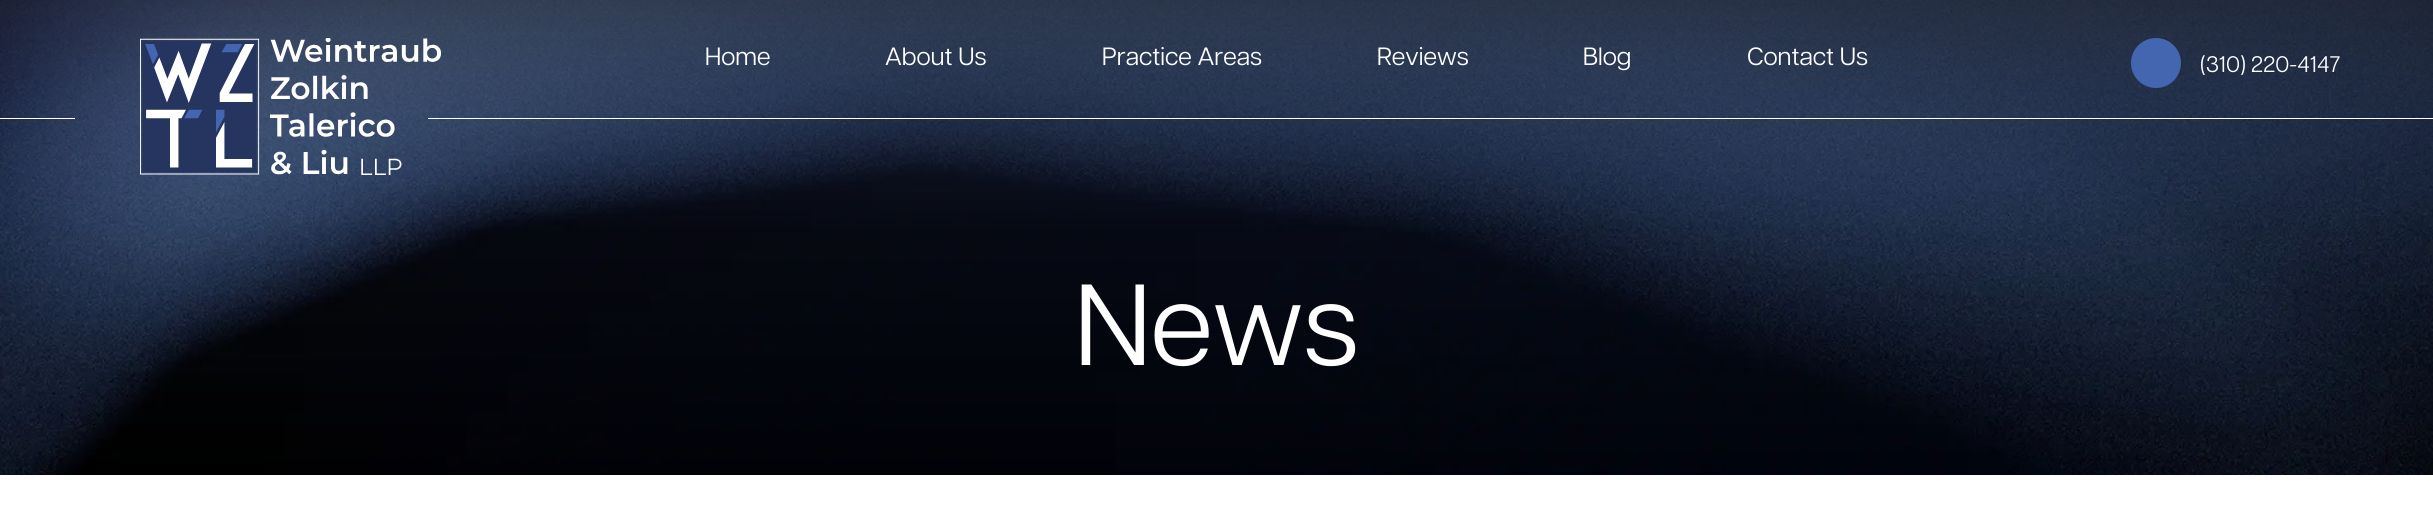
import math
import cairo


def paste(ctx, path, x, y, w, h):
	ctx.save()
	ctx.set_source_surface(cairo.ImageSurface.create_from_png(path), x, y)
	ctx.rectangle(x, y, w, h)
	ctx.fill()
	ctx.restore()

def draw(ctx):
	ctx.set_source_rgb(1, 1, 1)
	ctx.paint()
	paste(ctx, 'media/2.png', 0, 0, 2433, 475)
	paste(ctx, 'media/1.png', 140, 38, 301, 137)
	ctx.select_font_face('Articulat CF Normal')
	ctx.set_font_size(25)
	ctx.set_source_rgb(1, 1, 1)
	for x, y, s in [
		(705, 65, 'Home'),
		(885, 65, 'About Us'),
		(1102, 65, 'Practice Areas'),
		(1377, 65, 'Reviews'),
		(1583, 65, 'Blog'),
		(1747, 65, 'Contact Us'),
	]:
		ctx.move_to(x, y)
		ctx.show_text(s)
	ctx.set_source_rgb(0.267, 0.4, 0.69)
	ctx.new_path()
	ctx.arc(2156, 63, 25, 0, 2 * math.pi)
	ctx.fill()
	ctx.set_font_size(22.5)
	ctx.set_source_rgb(1, 1, 1)
	ctx.move_to(2200, 72)
	ctx.show_text('(310) 220-4147')
	ctx.rectangle(0, 118, 75, 1)
	ctx.fill()
	ctx.rectangle(428, 118, 2005, 1)
	ctx.fill()
	ctx.set_font_size(115)
	ctx.move_to(1075, 365)
	ctx.show_text('News')


surface = cairo.ImageSurface(cairo.FORMAT_RGB24, 2433, 530)
ctx = cairo.Context(surface)
options = cairo.FontOptions()
options.set_hint_metrics(cairo.HINT_METRICS_OFF)
options.set_hint_style(cairo.HINT_STYLE_NONE)
ctx.set_font_options(options)
ctx.set_miter_limit(4)
draw(ctx)
surface.write_to_png('image.png')
